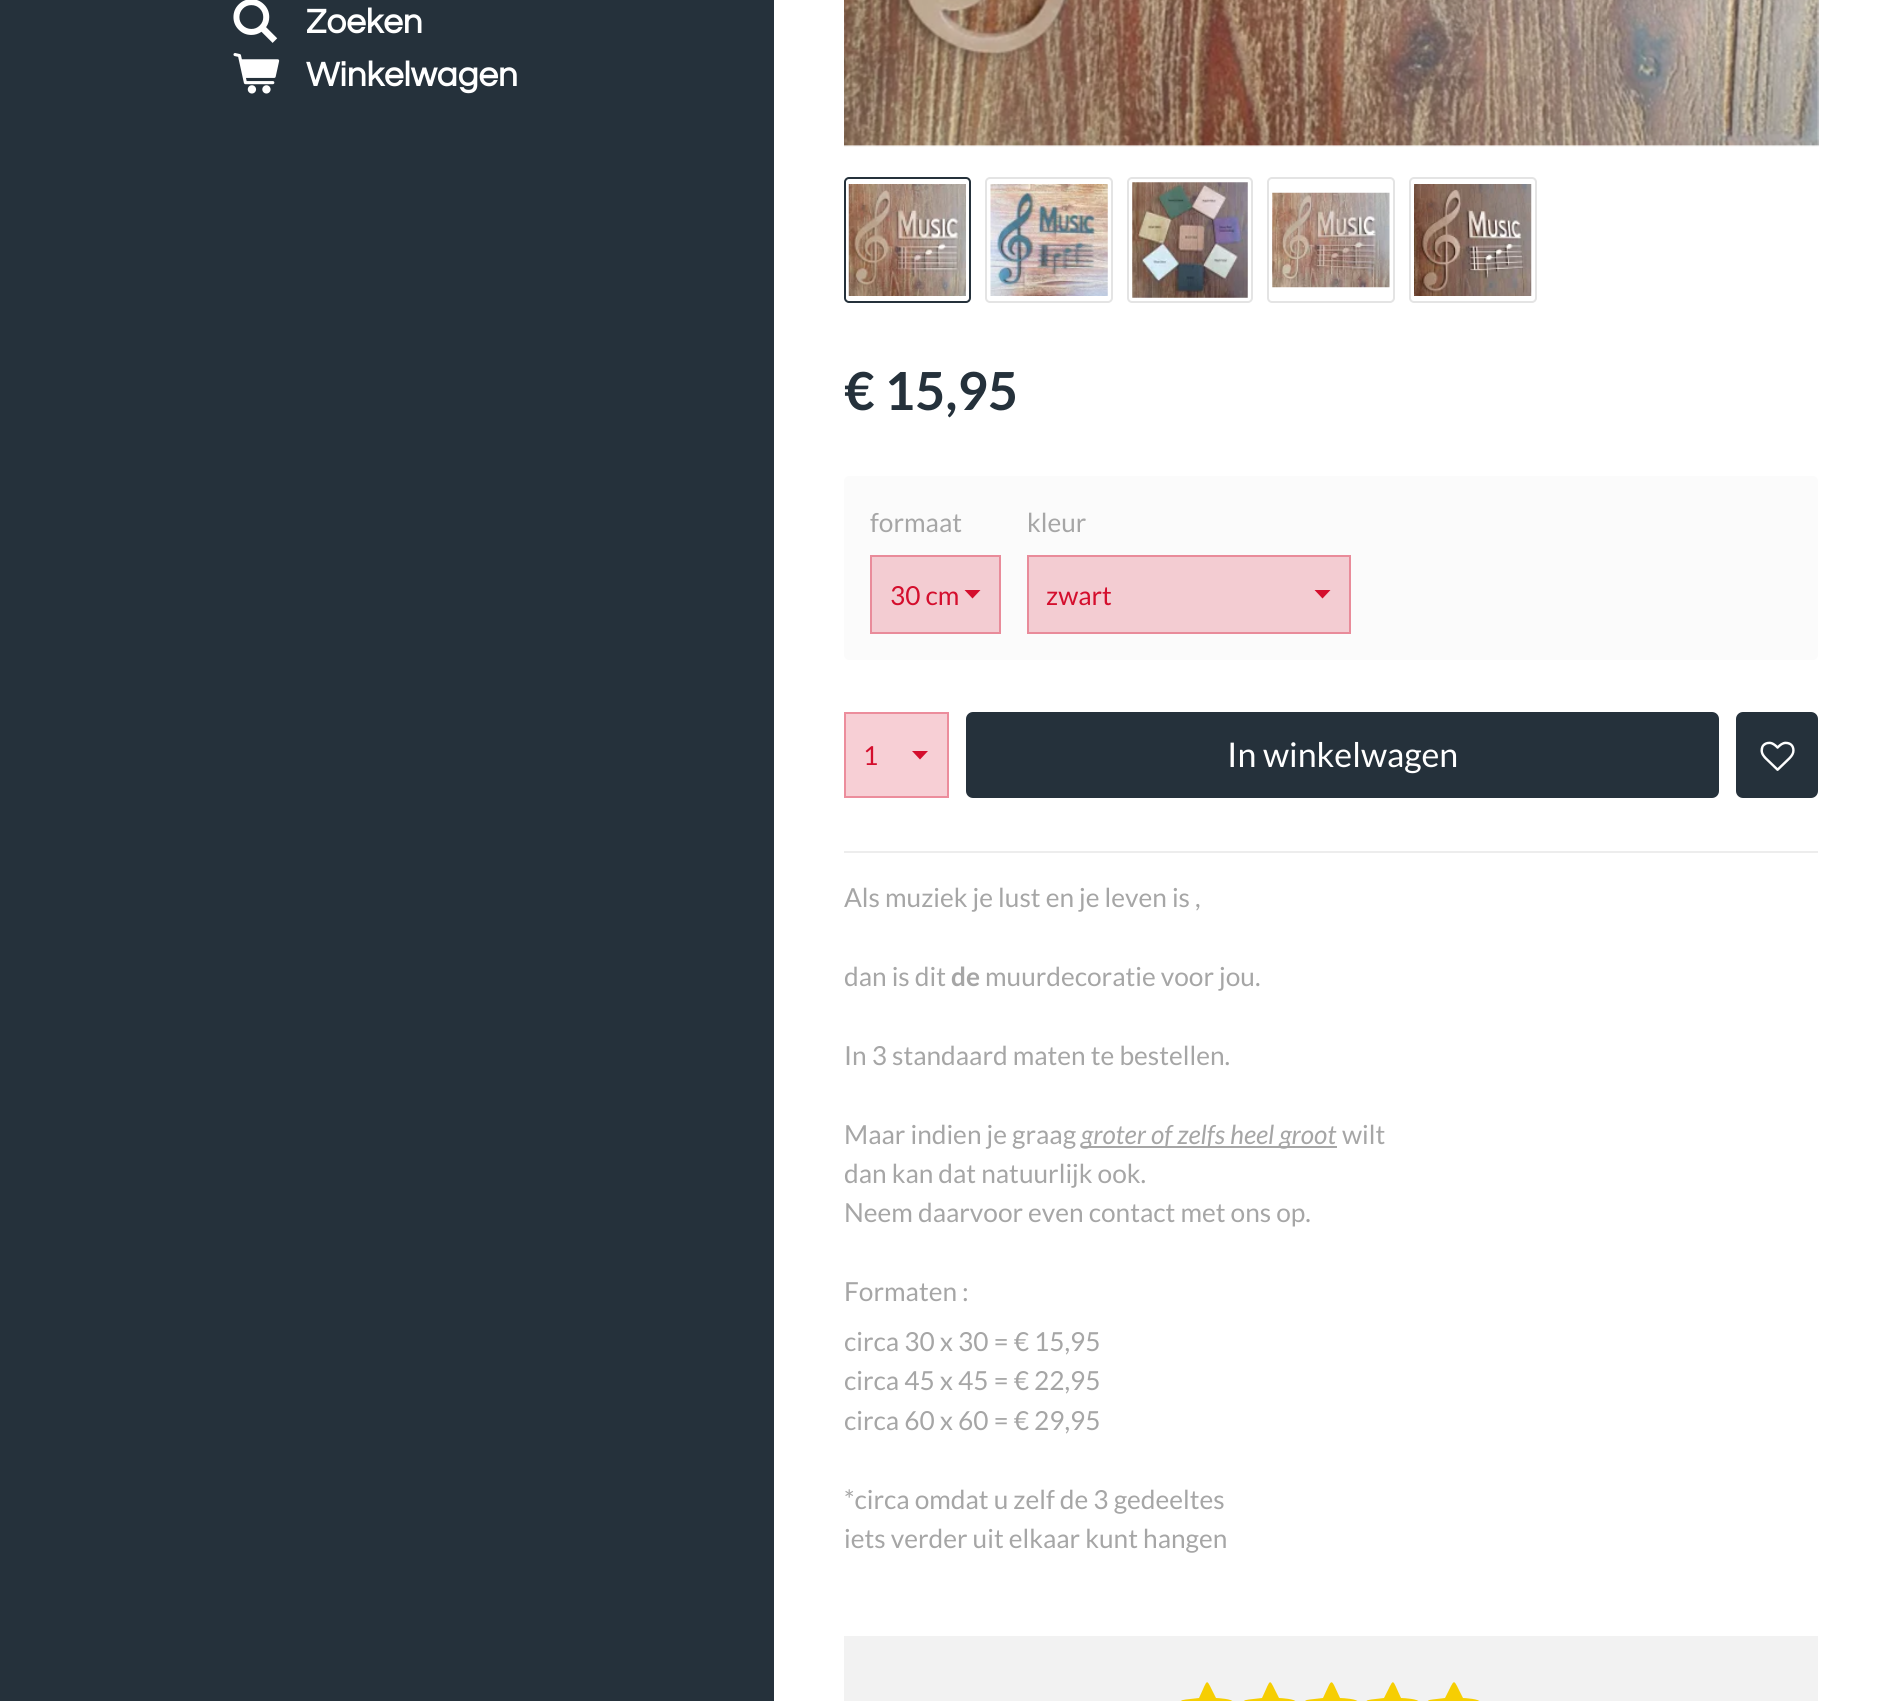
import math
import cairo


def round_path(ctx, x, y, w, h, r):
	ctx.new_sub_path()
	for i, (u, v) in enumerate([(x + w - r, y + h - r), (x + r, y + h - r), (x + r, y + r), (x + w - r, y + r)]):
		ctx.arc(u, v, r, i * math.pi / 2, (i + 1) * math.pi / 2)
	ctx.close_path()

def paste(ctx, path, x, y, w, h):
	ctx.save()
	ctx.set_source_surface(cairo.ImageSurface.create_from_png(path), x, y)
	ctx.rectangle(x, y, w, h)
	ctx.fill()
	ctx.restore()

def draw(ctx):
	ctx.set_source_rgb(1, 1, 1)
	ctx.paint()
	ctx.set_source_rgb(0.145, 0.192, 0.231)
	ctx.rectangle(0, 0, 774, 1701)
	ctx.fill()
	paste(ctx, 'media/1.png', 233, 0, 45, 43)
	ctx.select_font_face('Questrial', cairo.FONT_SLANT_NORMAL, cairo.FONT_WEIGHT_BOLD)
	ctx.set_font_size(35)
	ctx.set_source_rgb(1, 1, 1)
	ctx.move_to(306, 33)
	ctx.show_text('Zoeken')
	paste(ctx, 'media/2.png', 233, 53, 47, 41)
	ctx.move_to(306, 86)
	ctx.show_text('Winkelwagen')
	paste(ctx, 'media/3.png', 844, 0, 975, 147)
	round_path(ctx, 845, 178, 125, 124, 4)
	ctx.set_source_rgb(0.145, 0.192, 0.231)
	ctx.stroke()
	paste(ctx, 'media/4.png', 848, 184, 118, 112)
	round_path(ctx, 986, 178, 126, 124, 4)
	ctx.set_source_rgb(0.894, 0.894, 0.894)
	ctx.stroke()
	paste(ctx, 'media/5.png', 990, 184, 118, 112)
	round_path(ctx, 1128, 178, 124, 124, 4)
	ctx.stroke()
	paste(ctx, 'media/6.png', 1132, 182, 116, 116)
	round_path(ctx, 1268, 178, 126, 124, 4)
	ctx.stroke()
	paste(ctx, 'media/7.png', 1272, 192, 118, 96)
	round_path(ctx, 1410, 178, 126, 124, 4)
	ctx.stroke()
	paste(ctx, 'media/8.png', 1414, 184, 118, 112)
	ctx.select_font_face('Lato', cairo.FONT_SLANT_NORMAL, cairo.FONT_WEIGHT_BOLD)
	ctx.set_font_size(52.5)
	ctx.set_source_rgb(0.145, 0.192, 0.231)
	ctx.move_to(844, 410)
	ctx.show_text('€ 15,95')
	ctx.set_source_rgb(0.984, 0.984, 0.984)
	round_path(ctx, 844, 476, 974, 184, 5)
	ctx.fill()
	ctx.select_font_face('Lato')
	ctx.set_font_size(26.25)
	ctx.set_source_rgb(0.651, 0.651, 0.651)
	ctx.move_to(870, 532)
	ctx.show_text('formaat')
	ctx.set_source_rgb(0.953, 0.8, 0.824)
	ctx.rectangle(872, 557, 127, 75)
	ctx.fill()
	ctx.set_source_rgb(0.831, 0.055, 0.176)
	ctx.new_path()
	ctx.move_to(972.5, 598.5)
	ctx.line_to(964.5, 590)
	ctx.line_to(980.5, 590)
	ctx.close_path()
	ctx.fill()
	ctx.rectangle(871, 556, 129, 77)
	ctx.set_source_rgb(0.914, 0.545, 0.604)
	ctx.stroke()
	ctx.set_source_rgb(0.831, 0.055, 0.176)
	ctx.move_to(890, 605)
	ctx.show_text('30 cm')
	ctx.set_source_rgb(0.651, 0.651, 0.651)
	ctx.move_to(1027, 532)
	ctx.show_text('kleur')
	ctx.set_source_rgb(0.953, 0.8, 0.824)
	ctx.rectangle(1029, 557, 320, 75)
	ctx.fill()
	ctx.set_source_rgb(0.831, 0.055, 0.176)
	ctx.new_path()
	ctx.move_to(1322.5, 598.5)
	ctx.line_to(1314.5, 590)
	ctx.line_to(1330.5, 590)
	ctx.close_path()
	ctx.fill()
	ctx.rectangle(1028, 556, 322, 77)
	ctx.set_source_rgb(0.914, 0.545, 0.604)
	ctx.stroke()
	ctx.set_source_rgb(0.831, 0.055, 0.176)
	ctx.move_to(1046, 605)
	ctx.show_text('zwart')
	ctx.set_source_rgb(0.965, 0.812, 0.835)
	ctx.rectangle(846, 714, 101, 82)
	ctx.fill()
	ctx.set_source_rgb(0.831, 0.055, 0.176)
	ctx.new_path()
	ctx.move_to(920, 759.5)
	ctx.line_to(912, 751)
	ctx.line_to(928, 751)
	ctx.close_path()
	ctx.fill()
	ctx.rectangle(845, 713, 103, 84)
	ctx.set_source_rgb(0.922, 0.553, 0.612)
	ctx.stroke()
	ctx.set_source_rgb(0.831, 0.055, 0.176)
	ctx.move_to(863, 765)
	ctx.show_text('1')
	ctx.set_source_rgb(0.145, 0.192, 0.231)
	round_path(ctx, 966, 712, 753, 86, 7)
	ctx.fill()
	ctx.set_font_size(34)
	ctx.set_source_rgb(1, 1, 1)
	ctx.move_to(1227, 767)
	ctx.show_text('In winkelwagen')
	ctx.set_source_rgb(0.145, 0.192, 0.231)
	round_path(ctx, 1736, 712, 82, 86, 7)
	ctx.fill()
	paste(ctx, 'media/9.png', 1760, 741, 35, 30)
	ctx.set_source_rgb(0.929, 0.929, 0.929)
	ctx.rectangle(844, 851, 974, 2)
	ctx.fill()
	ctx.set_font_size(26.25)
	ctx.set_source_rgb(0.651, 0.651, 0.651)
	ctx.move_to(844, 907)
	ctx.show_text('Als muziek je lust en je leven is ,')
	ctx.move_to(844, 986)
	ctx.show_text('dan is dit')
	ctx.select_font_face('Lato', cairo.FONT_SLANT_NORMAL, cairo.FONT_WEIGHT_BOLD)
	ctx.move_to(951, 986)
	ctx.show_text('de')
	ctx.select_font_face('Lato')
	for x, y, s in [
		(985, 986, 'muurdecoratie voor jou.'),
		(844, 1065, 'In 3 standaard maten te bestellen.'),
		(844, 1144, 'Maar indien je graag'),
	]:
		ctx.move_to(x, y)
		ctx.show_text(s)
	ctx.rectangle(1082, 1146, 255, 2)
	ctx.fill()
	ctx.select_font_face('Lato', cairo.FONT_SLANT_ITALIC)
	ctx.move_to(1081, 1144)
	ctx.show_text('groter of zelfs heel groot')
	ctx.select_font_face('Lato')
	for x, y, s in [
		(1342, 1144, 'wilt'),
		(844, 1183, 'dan kan dat natuurlijk ook.'),
		(844, 1222, 'Neem daarvoor even contact met ons op.'),
		(844, 1301, 'Formaten :'),
		(844, 1351, 'circa 30 x 30 = € 15,95'),
		(844, 1390, 'circa 45 x 45 = € 22,95'),
		(844, 1430, 'circa 60 x 60 = € 29,95'),
		(844, 1509, '*circa omdat u zelf de 3 gedeeltes'),
		(844, 1548, 'iets verder uit elkaar kunt hangen'),
	]:
		ctx.move_to(x, y)
		ctx.show_text(s)
	ctx.set_source_rgb(0.949, 0.949, 0.949)
	ctx.rectangle(844, 1636, 974, 65)
	ctx.fill()
	ctx.set_source_rgb(0.961, 0.808, 0.008)
	ctx.new_path()
	ctx.move_to(1233, 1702)
	ctx.curve_to(1233, 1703, 1223, 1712, 1221, 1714)
	ctx.curve_to(1225, 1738, 1227, 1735, 1207, 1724)
	ctx.curve_to(1186, 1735, 1190, 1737, 1193, 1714)
	ctx.curve_to(1177, 1698, 1175, 1701, 1199, 1698)
	ctx.curve_to(1209, 1677, 1205, 1677, 1216, 1698)
	ctx.curve_to(1218, 1698, 1233, 1699, 1233, 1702)
	ctx.close_path()
	ctx.fill()
	ctx.new_path()
	ctx.move_to(1296, 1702)
	ctx.curve_to(1296, 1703, 1286, 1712, 1284, 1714)
	ctx.curve_to(1288, 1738, 1290, 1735, 1270, 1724)
	ctx.curve_to(1249, 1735, 1253, 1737, 1256, 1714)
	ctx.curve_to(1240, 1698, 1238, 1701, 1262, 1698)
	ctx.curve_to(1272, 1677, 1268, 1677, 1279, 1698)
	ctx.curve_to(1281, 1698, 1296, 1699, 1296, 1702)
	ctx.close_path()
	ctx.fill()
	ctx.new_path()
	ctx.move_to(1358, 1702)
	ctx.curve_to(1358, 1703, 1347, 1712, 1345, 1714)
	ctx.curve_to(1349, 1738, 1352, 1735, 1331, 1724)
	ctx.curve_to(1311, 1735, 1314, 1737, 1318, 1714)
	ctx.curve_to(1301, 1698, 1299, 1701, 1323, 1698)
	ctx.curve_to(1333, 1677, 1330, 1677, 1340, 1698)
	ctx.curve_to(1343, 1698, 1358, 1699, 1358, 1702)
	ctx.close_path()
	ctx.fill()
	ctx.new_path()
	ctx.move_to(1419, 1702)
	ctx.curve_to(1419, 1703, 1408, 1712, 1407, 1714)
	ctx.curve_to(1411, 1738, 1413, 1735, 1393, 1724)
	ctx.curve_to(1372, 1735, 1375, 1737, 1379, 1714)
	ctx.curve_to(1362, 1698, 1361, 1701, 1384, 1698)
	ctx.curve_to(1395, 1677, 1391, 1677, 1401, 1698)
	ctx.curve_to(1404, 1698, 1419, 1699, 1419, 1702)
	ctx.close_path()
	ctx.fill()
	ctx.new_path()
	ctx.move_to(1480, 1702)
	ctx.curve_to(1480, 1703, 1470, 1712, 1468, 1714)
	ctx.curve_to(1472, 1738, 1474, 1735, 1454, 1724)
	ctx.curve_to(1433, 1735, 1436, 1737, 1440, 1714)
	ctx.curve_to(1424, 1698, 1422, 1701, 1445, 1698)
	ctx.curve_to(1456, 1677, 1452, 1677, 1463, 1698)
	ctx.curve_to(1465, 1698, 1480, 1699, 1480, 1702)
	ctx.close_path()
	ctx.fill()


surface = cairo.ImageSurface(cairo.FORMAT_RGB24, 1888, 1701)
ctx = cairo.Context(surface)
options = cairo.FontOptions()
options.set_hint_metrics(cairo.HINT_METRICS_OFF)
options.set_hint_style(cairo.HINT_STYLE_NONE)
ctx.set_font_options(options)
ctx.set_miter_limit(4)
draw(ctx)
surface.write_to_png('image.png')
